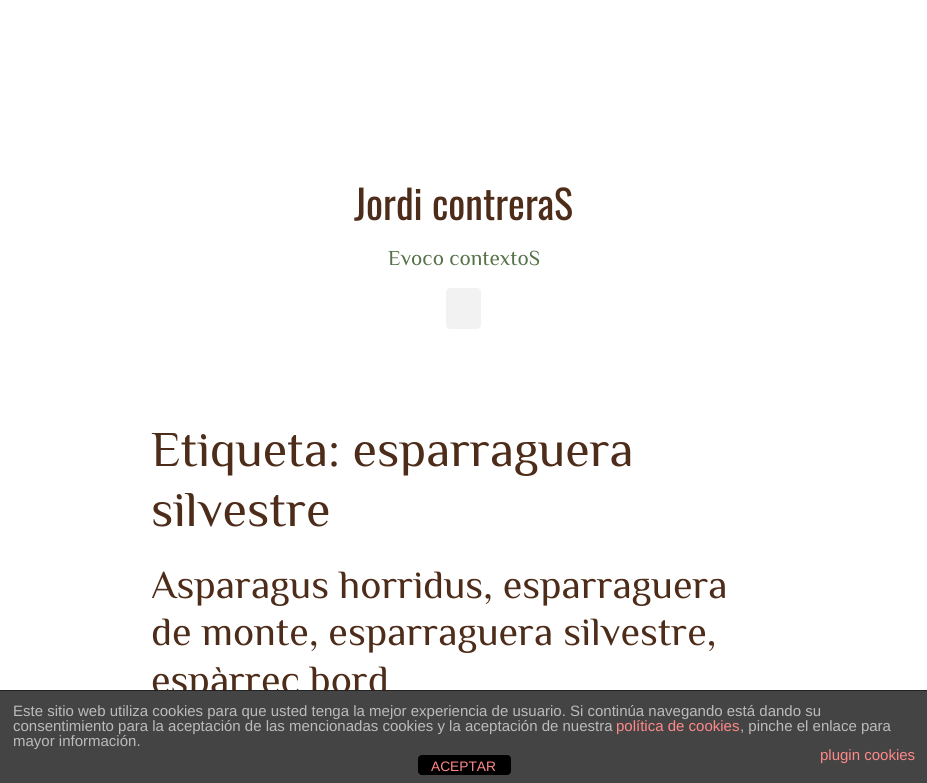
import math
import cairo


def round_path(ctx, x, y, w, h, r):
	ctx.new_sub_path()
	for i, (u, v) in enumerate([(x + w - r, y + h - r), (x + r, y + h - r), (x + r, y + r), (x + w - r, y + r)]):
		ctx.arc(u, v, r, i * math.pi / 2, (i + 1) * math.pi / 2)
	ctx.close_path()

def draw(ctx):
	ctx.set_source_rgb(1, 1, 1)
	ctx.paint()
	ctx.select_font_face('Oswald')
	ctx.set_font_size(40)
	ctx.set_source_rgb(0.302, 0.173, 0.098)
	ctx.move_to(354, 220)
	ctx.show_text('Jordi contreraS')
	ctx.select_font_face('Philosopher')
	ctx.set_font_size(21.25)
	ctx.set_source_rgb(0.333, 0.447, 0.286)
	ctx.move_to(388, 265)
	ctx.show_text('Evoco contextoS')
	ctx.set_source_rgb(0.949, 0.949, 0.949)
	round_path(ctx, 446, 288, 35, 41, 4)
	ctx.fill()
	ctx.set_font_size(50)
	ctx.set_source_rgb(0.302, 0.173, 0.098)
	ctx.move_to(151, 466)
	ctx.show_text('Etiqueta: esparraguera')
	ctx.move_to(151, 526)
	ctx.show_text('silvestre')
	ctx.set_font_size(40)
	for x, y, s in [
		(151, 598, 'Asparagus horridus, esparraguera'),
		(151, 645, 'de monte, esparraguera silvestre,'),
		(151, 693, 'espàrrec bord'),
	]:
		ctx.move_to(x, y)
		ctx.show_text(s)
	ctx.set_source_rgb(0.267, 0.267, 0.267)
	ctx.rectangle(0, 691, 927, 92)
	ctx.fill()
	ctx.set_source_rgb(0.133, 0.133, 0.133)
	ctx.rectangle(0, 690, 927, 1)
	ctx.fill()
	ctx.select_font_face('Liberation Sans')
	ctx.set_font_size(15)
	ctx.set_source_rgb(0.733, 0.733, 0.733)
	ctx.move_to(13, 716)
	ctx.show_text('Este sitio web utiliza cookies para que usted tenga la mejor experiencia de usuario. Si continúa navegando está dando su')
	ctx.move_to(13, 731)
	ctx.show_text('consentimiento para la aceptación de las mencionadas cookies y la aceptación de nuestra')
	ctx.set_source_rgb(1, 0.533, 0.533)
	ctx.move_to(616, 731)
	ctx.show_text('política de cookies')
	ctx.set_source_rgb(0.733, 0.733, 0.733)
	ctx.move_to(740, 731)
	ctx.show_text(', pinche el enlace para')
	ctx.move_to(13, 746)
	ctx.show_text('mayor información.')
	ctx.set_source_rgb(1, 0.533, 0.533)
	ctx.move_to(820, 760)
	ctx.show_text('plugin cookies')
	ctx.set_source_rgb(0, 0, 0)
	round_path(ctx, 418, 755, 93, 20, 4)
	ctx.fill()
	ctx.set_font_size(13.75)
	ctx.set_source_rgb(1, 0.533, 0.533)
	ctx.move_to(431, 771)
	ctx.show_text('ACEPTAR')


surface = cairo.ImageSurface(cairo.FORMAT_RGB24, 927, 783)
ctx = cairo.Context(surface)
options = cairo.FontOptions()
options.set_hint_metrics(cairo.HINT_METRICS_OFF)
options.set_hint_style(cairo.HINT_STYLE_NONE)
ctx.set_font_options(options)
ctx.set_miter_limit(4)
draw(ctx)
surface.write_to_png('image.png')
